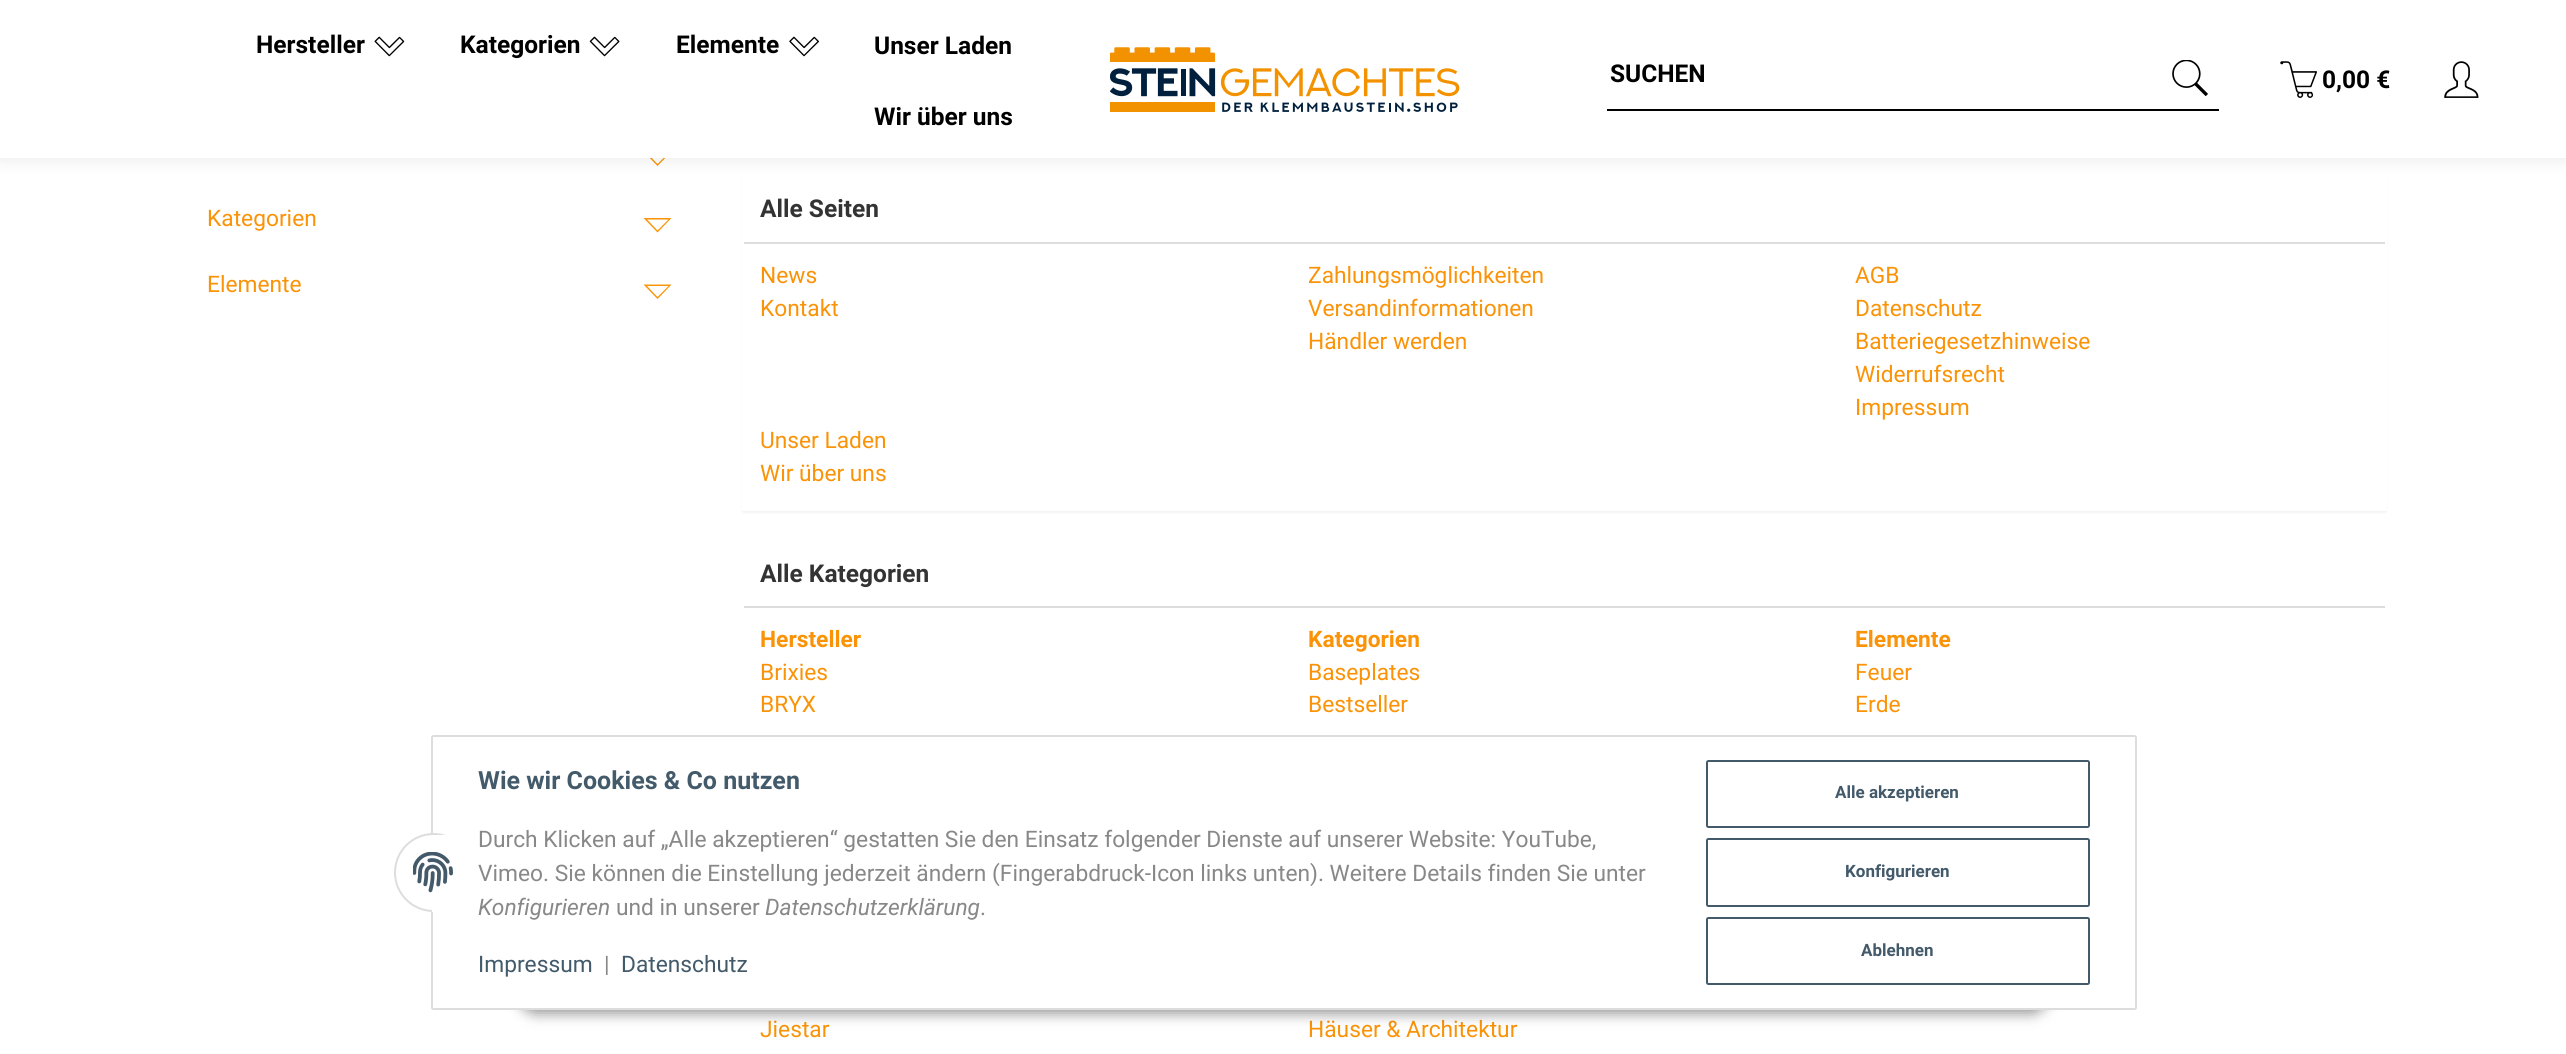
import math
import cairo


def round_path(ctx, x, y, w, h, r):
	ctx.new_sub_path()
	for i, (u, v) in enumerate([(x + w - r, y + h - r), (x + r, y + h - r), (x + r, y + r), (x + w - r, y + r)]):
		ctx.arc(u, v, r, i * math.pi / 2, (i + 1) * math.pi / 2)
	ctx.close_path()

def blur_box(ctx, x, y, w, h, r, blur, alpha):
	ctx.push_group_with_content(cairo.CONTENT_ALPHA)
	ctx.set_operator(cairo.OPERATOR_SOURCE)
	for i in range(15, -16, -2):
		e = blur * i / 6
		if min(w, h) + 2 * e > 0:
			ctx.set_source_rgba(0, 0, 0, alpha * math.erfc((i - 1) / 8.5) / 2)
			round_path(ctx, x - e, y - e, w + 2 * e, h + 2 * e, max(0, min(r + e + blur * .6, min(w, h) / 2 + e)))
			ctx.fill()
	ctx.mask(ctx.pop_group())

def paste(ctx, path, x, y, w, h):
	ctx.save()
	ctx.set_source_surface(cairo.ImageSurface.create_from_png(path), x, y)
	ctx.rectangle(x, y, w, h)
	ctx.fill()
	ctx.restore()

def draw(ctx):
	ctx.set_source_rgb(1, 1, 1)
	ctx.paint()
	ctx.set_source_rgb(0.98, 0.576, 0.031)
	ctx.new_path()
	ctx.move_to(668.5, 153)
	ctx.line_to(657.5, 164)
	ctx.line_to(647, 153)
	ctx.line_to(668.5, 153)
	ctx.move_to(671.5, 151.5)
	ctx.line_to(643.5, 151.5)
	ctx.line_to(657.5, 166)
	ctx.close_path()
	ctx.fill()
	ctx.set_source_rgb(0, 0, 0)
	blur_box(ctx, 0, 0, 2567, 158, 0, 9, 0.1)
	ctx.set_source_rgb(1, 1, 1)
	ctx.rectangle(0, 0, 2566, 158)
	ctx.fill()
	ctx.select_font_face('Roboto', cairo.FONT_SLANT_NORMAL, cairo.FONT_WEIGHT_BOLD)
	ctx.set_font_size(24.5)
	ctx.set_source_rgb(0, 0, 0)
	ctx.move_to(256, 53)
	ctx.show_text('Hersteller')
	paste(ctx, 'media/1.png', 374, 36, 31, 21)
	ctx.move_to(460, 53)
	ctx.show_text('Kategorien')
	paste(ctx, 'media/2.png', 589, 36, 31, 21)
	ctx.move_to(676, 53)
	ctx.show_text('Elemente')
	paste(ctx, 'media/3.png', 789, 36, 30, 21)
	ctx.move_to(874, 54)
	ctx.show_text('Unser Laden')
	ctx.move_to(874, 125)
	ctx.show_text('Wir über uns')
	paste(ctx, 'media/4.png', 1110, 47, 350, 65)
	ctx.rectangle(1607, 109, 612, 2)
	ctx.fill()
	ctx.move_to(1610, 82)
	ctx.show_text('SUCHEN')
	paste(ctx, 'media/5.png', 2172, 60, 36, 36)
	paste(ctx, 'media/6.png', 2280, 61, 37, 37)
	ctx.move_to(2322, 88)
	ctx.show_text('0,00 €')
	paste(ctx, 'media/7.png', 2444, 61, 35, 37)
	ctx.select_font_face('Roboto')
	ctx.set_font_size(22.75)
	ctx.set_source_rgb(0.98, 0.576, 0.031)
	ctx.move_to(207, 226)
	ctx.show_text('Kategorien')
	ctx.new_path()
	ctx.move_to(668.5, 219.5)
	ctx.line_to(657.5, 230.5)
	ctx.line_to(647, 219.5)
	ctx.line_to(668.5, 219.5)
	ctx.move_to(671.5, 218)
	ctx.line_to(643.5, 218)
	ctx.line_to(657.5, 232.5)
	ctx.close_path()
	ctx.fill()
	ctx.move_to(207, 292)
	ctx.show_text('Elemente')
	ctx.new_path()
	ctx.move_to(668.5, 286)
	ctx.line_to(657.5, 297)
	ctx.line_to(647, 286)
	ctx.line_to(668.5, 286)
	ctx.move_to(671.5, 284.5)
	ctx.line_to(643.5, 284.5)
	ctx.line_to(657.5, 299)
	ctx.close_path()
	ctx.fill()
	ctx.save()
	ctx.set_fill_rule(cairo.FILL_RULE_EVEN_ODD)
	ctx.new_path()
	ctx.move_to(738, 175)
	ctx.line_to(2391, 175)
	ctx.line_to(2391, 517)
	ctx.line_to(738, 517)
	ctx.close_path()
	ctx.move_to(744, 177)
	ctx.line_to(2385, 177)
	ctx.curve_to(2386, 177, 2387, 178, 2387, 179)
	ctx.line_to(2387, 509)
	ctx.curve_to(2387, 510, 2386, 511, 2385, 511)
	ctx.line_to(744, 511)
	ctx.curve_to(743, 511, 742, 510, 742, 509)
	ctx.line_to(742, 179)
	ctx.curve_to(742, 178, 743, 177, 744, 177)
	ctx.close_path()
	ctx.clip()
	ctx.set_source_rgb(0, 0, 0)
	blur_box(ctx, 742, 179, 1645, 334, 2, 1, 0.05)
	ctx.restore()
	ctx.set_source_rgb(0.867, 0.867, 0.867)
	ctx.rectangle(744, 242, 1641, 2)
	ctx.fill()
	ctx.select_font_face('Roboto', cairo.FONT_SLANT_NORMAL, cairo.FONT_WEIGHT_BOLD)
	ctx.set_font_size(24.5)
	ctx.set_source_rgb(0.2, 0.2, 0.2)
	ctx.move_to(760, 217)
	ctx.show_text('Alle Seiten')
	ctx.select_font_face('Roboto')
	ctx.set_font_size(22.75)
	ctx.set_source_rgb(0.98, 0.576, 0.031)
	for x, y, s in [
		(760, 283, 'News'),
		(760, 316, 'Kontakt'),
		(1308, 283, 'Zahlungsmöglichkeiten'),
		(1308, 316, 'Versandinformationen'),
		(1308, 349, 'Händler werden'),
		(1855, 283, 'AGB'),
		(1855, 316, 'Datenschutz'),
		(1855, 349, 'Batteriegesetzhinweise'),
		(1855, 382, 'Widerrufsrecht'),
		(1855, 415, 'Impressum'),
		(760, 448, 'Unser Laden'),
		(760, 481, 'Wir über uns'),
	]:
		ctx.move_to(x, y)
		ctx.show_text(s)
	ctx.set_source_rgb(0.867, 0.867, 0.867)
	ctx.rectangle(744, 606, 1641, 2)
	ctx.fill()
	ctx.select_font_face('Roboto', cairo.FONT_SLANT_NORMAL, cairo.FONT_WEIGHT_BOLD)
	ctx.set_font_size(24.5)
	ctx.set_source_rgb(0.2, 0.2, 0.2)
	ctx.move_to(760, 582)
	ctx.show_text('Alle Kategorien')
	ctx.set_font_size(22.75)
	ctx.set_source_rgb(0.98, 0.576, 0.031)
	ctx.move_to(760, 647)
	ctx.show_text('Hersteller')
	ctx.select_font_face('Roboto')
	for x, y, s in [
		(760, 680, 'Brixies'),
		(760, 712, 'BRYX'),
		(760, 1037, 'Jiestar'),
	]:
		ctx.move_to(x, y)
		ctx.show_text(s)
	ctx.select_font_face('Roboto', cairo.FONT_SLANT_NORMAL, cairo.FONT_WEIGHT_BOLD)
	ctx.move_to(1308, 647)
	ctx.show_text('Kategorien')
	ctx.select_font_face('Roboto')
	for x, y, s in [
		(1308, 680, 'Baseplates'),
		(1308, 712, 'Bestseller'),
		(1308, 1037, 'Häuser & Architektur'),
	]:
		ctx.move_to(x, y)
		ctx.show_text(s)
	ctx.select_font_face('Roboto', cairo.FONT_SLANT_NORMAL, cairo.FONT_WEIGHT_BOLD)
	ctx.move_to(1855, 647)
	ctx.show_text('Elemente')
	ctx.select_font_face('Roboto')
	ctx.move_to(1855, 680)
	ctx.show_text('Feuer')
	ctx.move_to(1855, 712)
	ctx.show_text('Erde')
	ctx.set_source_rgb(0, 0, 0)
	blur_box(ctx, 518, 968, 1531, 45, 22.5, 7, 0.45)
	ctx.set_source_rgb(1, 1, 1)
	round_path(ctx, 432, 736, 1704, 273, 1.5)
	ctx.fill_preserve()
	ctx.set_source_rgb(0.867, 0.867, 0.867)
	ctx.stroke()
	ctx.set_source_rgb(1, 1, 1)
	ctx.arc(433.5, 872.5, 38.5, 0, 2 * math.pi)
	ctx.fill_preserve()
	ctx.set_source_rgb(0.867, 0.867, 0.867)
	ctx.stroke()
	ctx.set_source_rgb(1, 1, 1)
	ctx.rectangle(432, 835, 41, 77)
	ctx.fill()
	paste(ctx, 'media/8.png', 413, 852, 40, 41)
	ctx.select_font_face('Roboto', cairo.FONT_SLANT_NORMAL, cairo.FONT_WEIGHT_BOLD)
	ctx.set_font_size(25)
	ctx.set_source_rgb(0.263, 0.353, 0.42)
	ctx.move_to(478, 789)
	ctx.show_text('Wie wir Cookies & Co nutzen')
	ctx.select_font_face('Roboto')
	ctx.set_font_size(22.75)
	ctx.set_source_rgb(0.533, 0.533, 0.533)
	ctx.move_to(478, 847)
	ctx.show_text('Durch Klicken auf „Alle akzeptieren“ gestatten Sie den Einsatz folgender Dienste auf unserer Website: YouTube,')
	ctx.move_to(478, 881)
	ctx.show_text('Vimeo. Sie können die Einstellung jederzeit ändern (Fingerabdruck-Icon links unten). Weitere Details finden Sie unter')
	ctx.select_font_face('Roboto', cairo.FONT_SLANT_ITALIC)
	ctx.move_to(478, 915)
	ctx.show_text('Konfigurieren')
	ctx.select_font_face('Roboto')
	ctx.move_to(616, 915)
	ctx.show_text('und in unserer')
	ctx.select_font_face('Roboto', cairo.FONT_SLANT_ITALIC)
	ctx.move_to(765, 915)
	ctx.show_text('Datenschutzerklärung')
	ctx.select_font_face('Roboto')
	ctx.move_to(980, 915)
	ctx.show_text('.')
	ctx.set_source_rgb(0.263, 0.353, 0.42)
	ctx.move_to(478, 972)
	ctx.show_text('Impressum')
	ctx.set_source_rgb(0.533, 0.533, 0.533)
	ctx.move_to(604, 972)
	ctx.show_text('|')
	ctx.set_source_rgb(0.263, 0.353, 0.42)
	ctx.move_to(621, 972)
	ctx.show_text('Datenschutz')
	round_path(ctx, 1707, 761, 382, 66, 1.5)
	ctx.stroke()
	ctx.select_font_face('Roboto', cairo.FONT_SLANT_NORMAL, cairo.FONT_WEIGHT_BOLD)
	ctx.set_font_size(17)
	ctx.move_to(1835, 798)
	ctx.show_text('Alle akzeptieren')
	round_path(ctx, 1707, 839, 382, 67, 1.5)
	ctx.stroke()
	ctx.move_to(1845, 877)
	ctx.show_text('Konfigurieren')
	round_path(ctx, 1707, 918, 382, 66, 1.5)
	ctx.stroke()
	ctx.move_to(1861, 956)
	ctx.show_text('Ablehnen')


surface = cairo.ImageSurface(cairo.FORMAT_RGB24, 2566, 1054)
ctx = cairo.Context(surface)
options = cairo.FontOptions()
options.set_hint_metrics(cairo.HINT_METRICS_OFF)
options.set_hint_style(cairo.HINT_STYLE_NONE)
ctx.set_font_options(options)
ctx.set_miter_limit(4)
draw(ctx)
surface.write_to_png('image.png')
